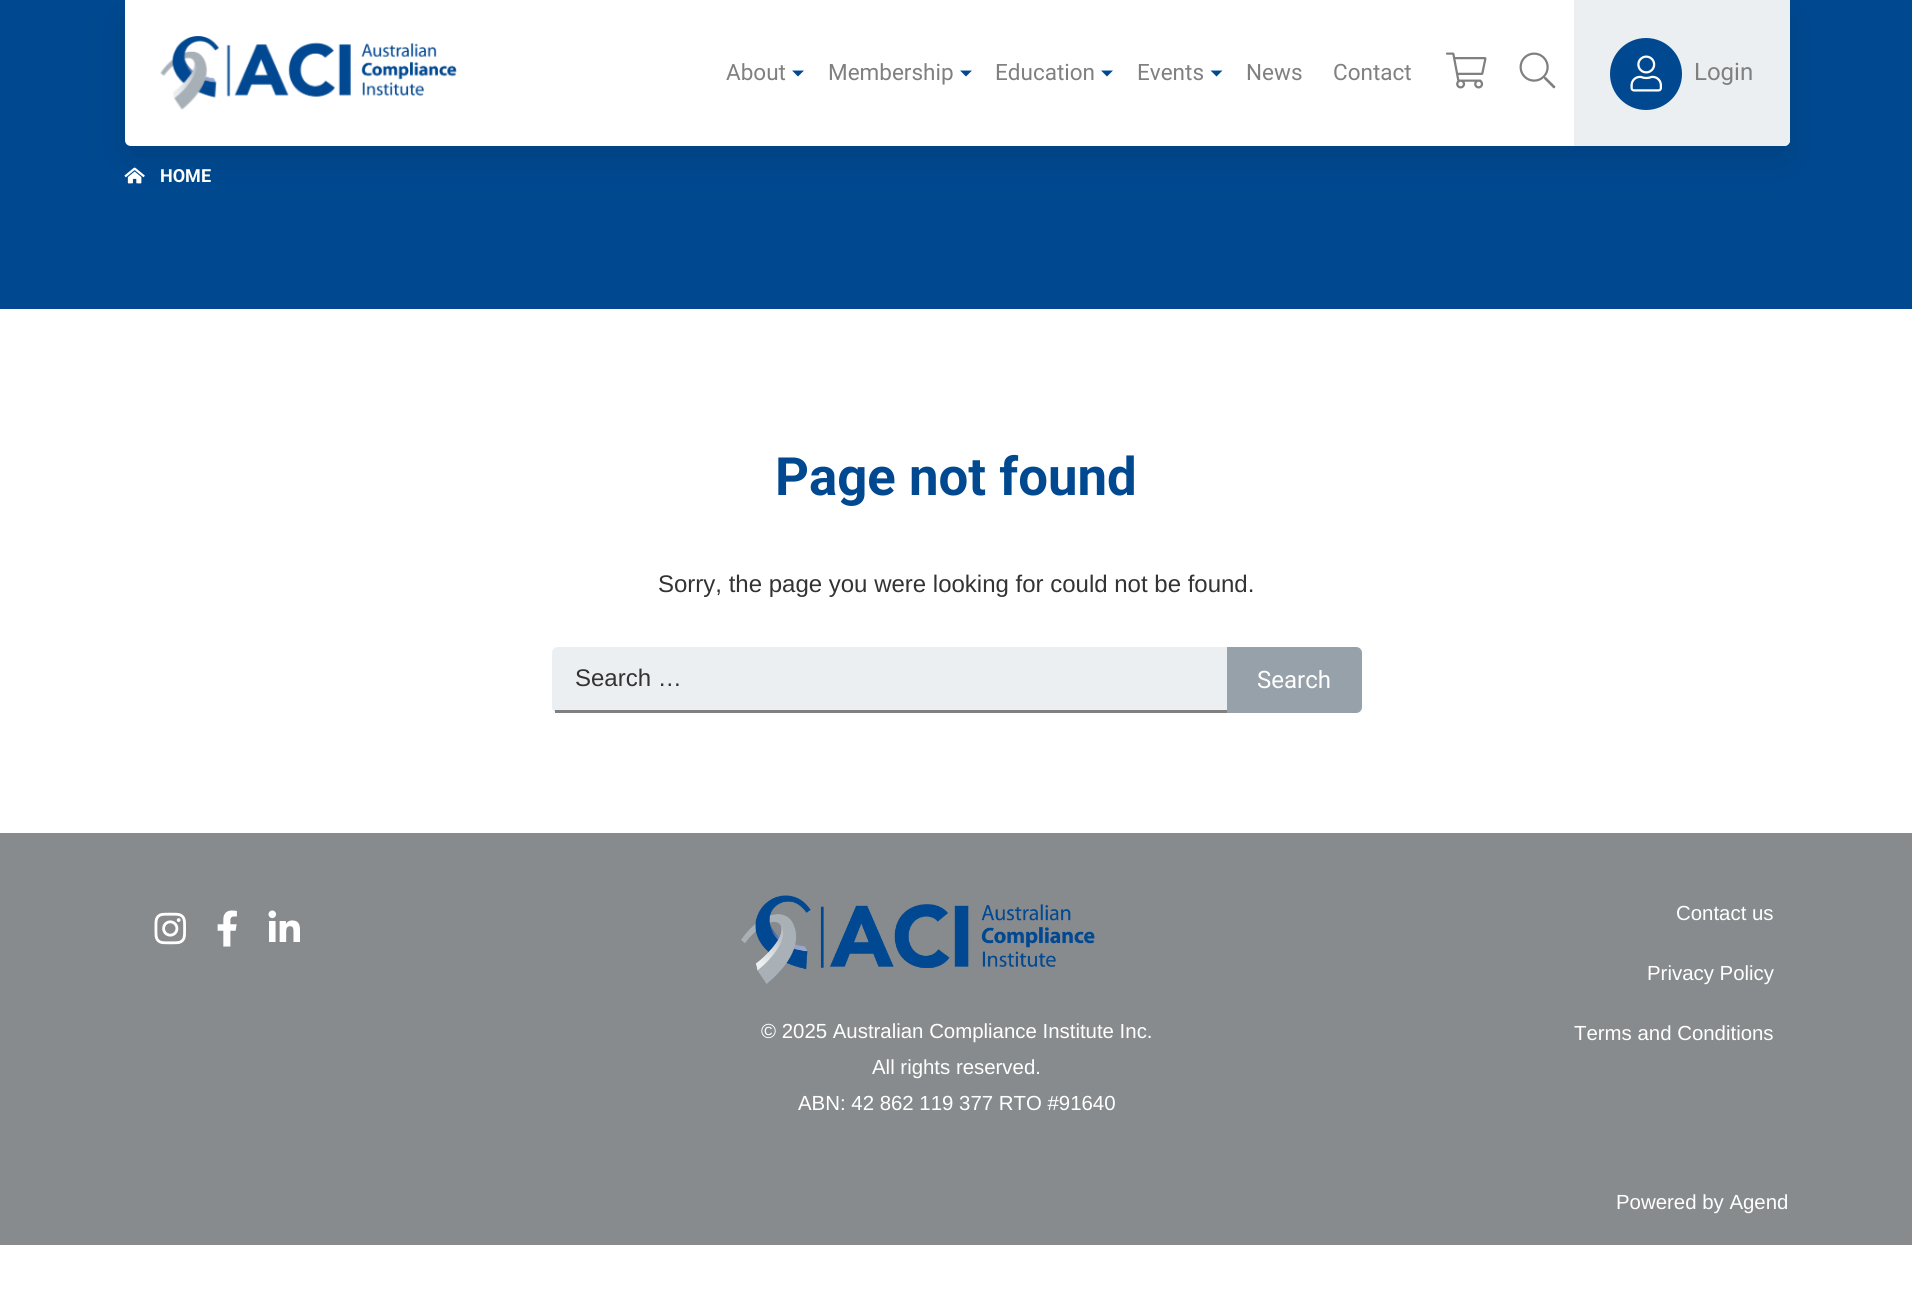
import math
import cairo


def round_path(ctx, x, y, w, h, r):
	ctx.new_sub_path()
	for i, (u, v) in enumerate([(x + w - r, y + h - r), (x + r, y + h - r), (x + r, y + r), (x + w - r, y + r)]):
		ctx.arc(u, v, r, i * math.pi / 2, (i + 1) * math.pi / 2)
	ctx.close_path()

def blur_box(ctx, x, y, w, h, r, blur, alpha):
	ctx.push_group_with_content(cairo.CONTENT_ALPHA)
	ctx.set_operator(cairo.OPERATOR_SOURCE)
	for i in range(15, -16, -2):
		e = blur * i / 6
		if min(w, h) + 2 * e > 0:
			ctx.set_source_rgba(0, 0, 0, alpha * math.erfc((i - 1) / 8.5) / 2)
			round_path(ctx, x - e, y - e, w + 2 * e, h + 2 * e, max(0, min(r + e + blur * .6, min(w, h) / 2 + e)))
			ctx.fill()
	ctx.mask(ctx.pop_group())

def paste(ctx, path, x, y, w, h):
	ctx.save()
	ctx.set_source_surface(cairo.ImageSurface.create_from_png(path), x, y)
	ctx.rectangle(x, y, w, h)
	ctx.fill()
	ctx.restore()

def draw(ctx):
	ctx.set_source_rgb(1, 1, 1)
	ctx.paint()
	ctx.set_source_rgb(0, 0.286, 0.565)
	ctx.rectangle(0, 0, 1912, 309)
	ctx.fill()
	ctx.set_source_rgb(0, 0, 0)
	blur_box(ctx, 125, 15, 1665, 146, 6, 19, 0.1)
	ctx.set_source_rgb(1, 1, 1)
	ctx.new_path()
	ctx.move_to(125, 0)
	ctx.line_to(1790, 0)
	ctx.line_to(1790, 140)
	ctx.curve_to(1790, 143.5, 1787.5, 146, 1784, 146)
	ctx.line_to(131, 146)
	ctx.curve_to(127.5, 146, 125, 143.5, 125, 140)
	ctx.close_path()
	ctx.fill()
	paste(ctx, 'media/1.png', 160, 36, 297, 74)
	ctx.select_font_face('Roboto')
	ctx.set_font_size(22.5)
	ctx.set_source_rgb(0.502, 0.502, 0.502)
	ctx.move_to(726, 80)
	ctx.show_text('About')
	ctx.set_source_rgb(0, 0.286, 0.565)
	ctx.new_path()
	ctx.move_to(792, 70.5)
	ctx.line_to(804, 70.5)
	ctx.line_to(798, 76.5)
	ctx.close_path()
	ctx.fill()
	ctx.set_source_rgb(0.502, 0.502, 0.502)
	ctx.move_to(828, 80)
	ctx.show_text('Membership')
	ctx.set_source_rgb(0, 0.286, 0.565)
	ctx.new_path()
	ctx.move_to(960, 70.5)
	ctx.line_to(972, 70.5)
	ctx.line_to(966, 76.5)
	ctx.close_path()
	ctx.fill()
	ctx.set_source_rgb(0.502, 0.502, 0.502)
	ctx.move_to(995, 80)
	ctx.show_text('Education')
	ctx.set_source_rgb(0, 0.286, 0.565)
	ctx.new_path()
	ctx.move_to(1101, 70.5)
	ctx.line_to(1113, 70.5)
	ctx.line_to(1107, 76.5)
	ctx.close_path()
	ctx.fill()
	ctx.set_source_rgb(0.502, 0.502, 0.502)
	ctx.move_to(1137, 80)
	ctx.show_text('Events')
	ctx.set_source_rgb(0, 0.286, 0.565)
	ctx.new_path()
	ctx.move_to(1210.5, 70.5)
	ctx.line_to(1222.5, 70.5)
	ctx.line_to(1216.5, 76.5)
	ctx.close_path()
	ctx.fill()
	ctx.set_source_rgb(0.502, 0.502, 0.502)
	ctx.move_to(1246, 80)
	ctx.show_text('News')
	ctx.move_to(1333, 80)
	ctx.show_text('Contact')
	paste(ctx, 'media/2.png', 1446, 52, 41, 37)
	paste(ctx, 'media/3.png', 1519, 52, 37, 37)
	ctx.set_source_rgb(0.922, 0.937, 0.949)
	ctx.new_path()
	ctx.move_to(1574, 0)
	ctx.line_to(1790, 0)
	ctx.line_to(1790, 140)
	ctx.curve_to(1790, 143.5, 1787.5, 146, 1784, 146)
	ctx.line_to(1574, 146)
	ctx.close_path()
	ctx.fill()
	ctx.set_source_rgb(0, 0.286, 0.565)
	ctx.arc(1646, 74, 36, 0, 2 * math.pi)
	ctx.fill()
	paste(ctx, 'media/4.png', 1630, 55, 32, 37)
	ctx.set_font_size(24)
	ctx.set_source_rgb(0.502, 0.502, 0.502)
	ctx.move_to(1694, 80)
	ctx.show_text('Login')
	paste(ctx, 'media/5.png', 124, 167, 21, 17)
	ctx.select_font_face('Roboto', cairo.FONT_SLANT_NORMAL, cairo.FONT_WEIGHT_BOLD)
	ctx.set_font_size(18)
	ctx.set_source_rgb(1, 1, 1)
	ctx.move_to(160, 182)
	ctx.show_text('HOME')
	ctx.set_font_size(52.75)
	ctx.set_source_rgb(0, 0.286, 0.565)
	ctx.move_to(775, 495)
	ctx.show_text('Page not found')
	ctx.select_font_face('Liberation Sans')
	ctx.set_font_size(24)
	ctx.set_source_rgb(0.2, 0.2, 0.2)
	ctx.move_to(658, 592)
	ctx.show_text('Sorry, the page you were looking for could not be found.')
	ctx.set_source_rgb(0.922, 0.937, 0.949)
	ctx.new_path()
	ctx.move_to(558, 647)
	ctx.line_to(1227, 647)
	ctx.line_to(1227, 713)
	ctx.line_to(558, 713)
	ctx.curve_to(554.5, 713, 552, 710.5, 552, 707)
	ctx.line_to(552, 653)
	ctx.curve_to(552, 649.5, 554.5, 647, 558, 647)
	ctx.close_path()
	ctx.fill()
	ctx.set_source_rgb(0.502, 0.502, 0.502)
	ctx.rectangle(555, 710, 672, 3)
	ctx.fill()
	ctx.set_source_rgb(0.2, 0.2, 0.2)
	ctx.move_to(575, 686)
	ctx.show_text('Search …')
	ctx.set_source_rgb(0.592, 0.631, 0.663)
	ctx.new_path()
	ctx.move_to(1227, 647)
	ctx.line_to(1356, 647)
	ctx.curve_to(1359.5, 647, 1362, 649.5, 1362, 653)
	ctx.line_to(1362, 707)
	ctx.curve_to(1362, 710.5, 1359.5, 713, 1356, 713)
	ctx.line_to(1227, 713)
	ctx.close_path()
	ctx.fill()
	ctx.select_font_face('Roboto')
	ctx.set_source_rgb(1, 1, 1)
	ctx.move_to(1257, 688)
	ctx.show_text('Search')
	ctx.set_source_rgb(0.533, 0.545, 0.553)
	ctx.rectangle(0, 833, 1912, 412)
	ctx.fill()
	paste(ctx, 'media/6.png', 154, 912, 32, 33)
	paste(ctx, 'media/7.png', 217, 910, 20, 37)
	paste(ctx, 'media/8.png', 268, 910, 32, 32)
	ctx.select_font_face('Liberation Sans')
	ctx.set_font_size(20.4)
	ctx.set_source_rgb(1, 1, 1)
	for x, y, s in [
		(1676, 920, 'Contact us'),
		(1647, 980, 'Privacy Policy'),
		(1574, 1040, 'Terms and Conditions'),
	]:
		ctx.move_to(x, y)
		ctx.show_text(s)
	paste(ctx, 'media/9.png', 741, 895, 354, 89)
	for x, y, s in [
		(761, 1038, '© 2025 Australian Compliance Institute Inc.'),
		(872, 1074, 'All rights reserved.'),
		(798, 1110, 'ABN: 42 862 119 377 RTO #91640'),
		(1616, 1209, 'Powered by Agend'),
	]:
		ctx.move_to(x, y)
		ctx.show_text(s)


surface = cairo.ImageSurface(cairo.FORMAT_RGB24, 1912, 1300)
ctx = cairo.Context(surface)
options = cairo.FontOptions()
options.set_hint_metrics(cairo.HINT_METRICS_OFF)
options.set_hint_style(cairo.HINT_STYLE_NONE)
ctx.set_font_options(options)
ctx.set_miter_limit(4)
draw(ctx)
surface.write_to_png('image.png')
